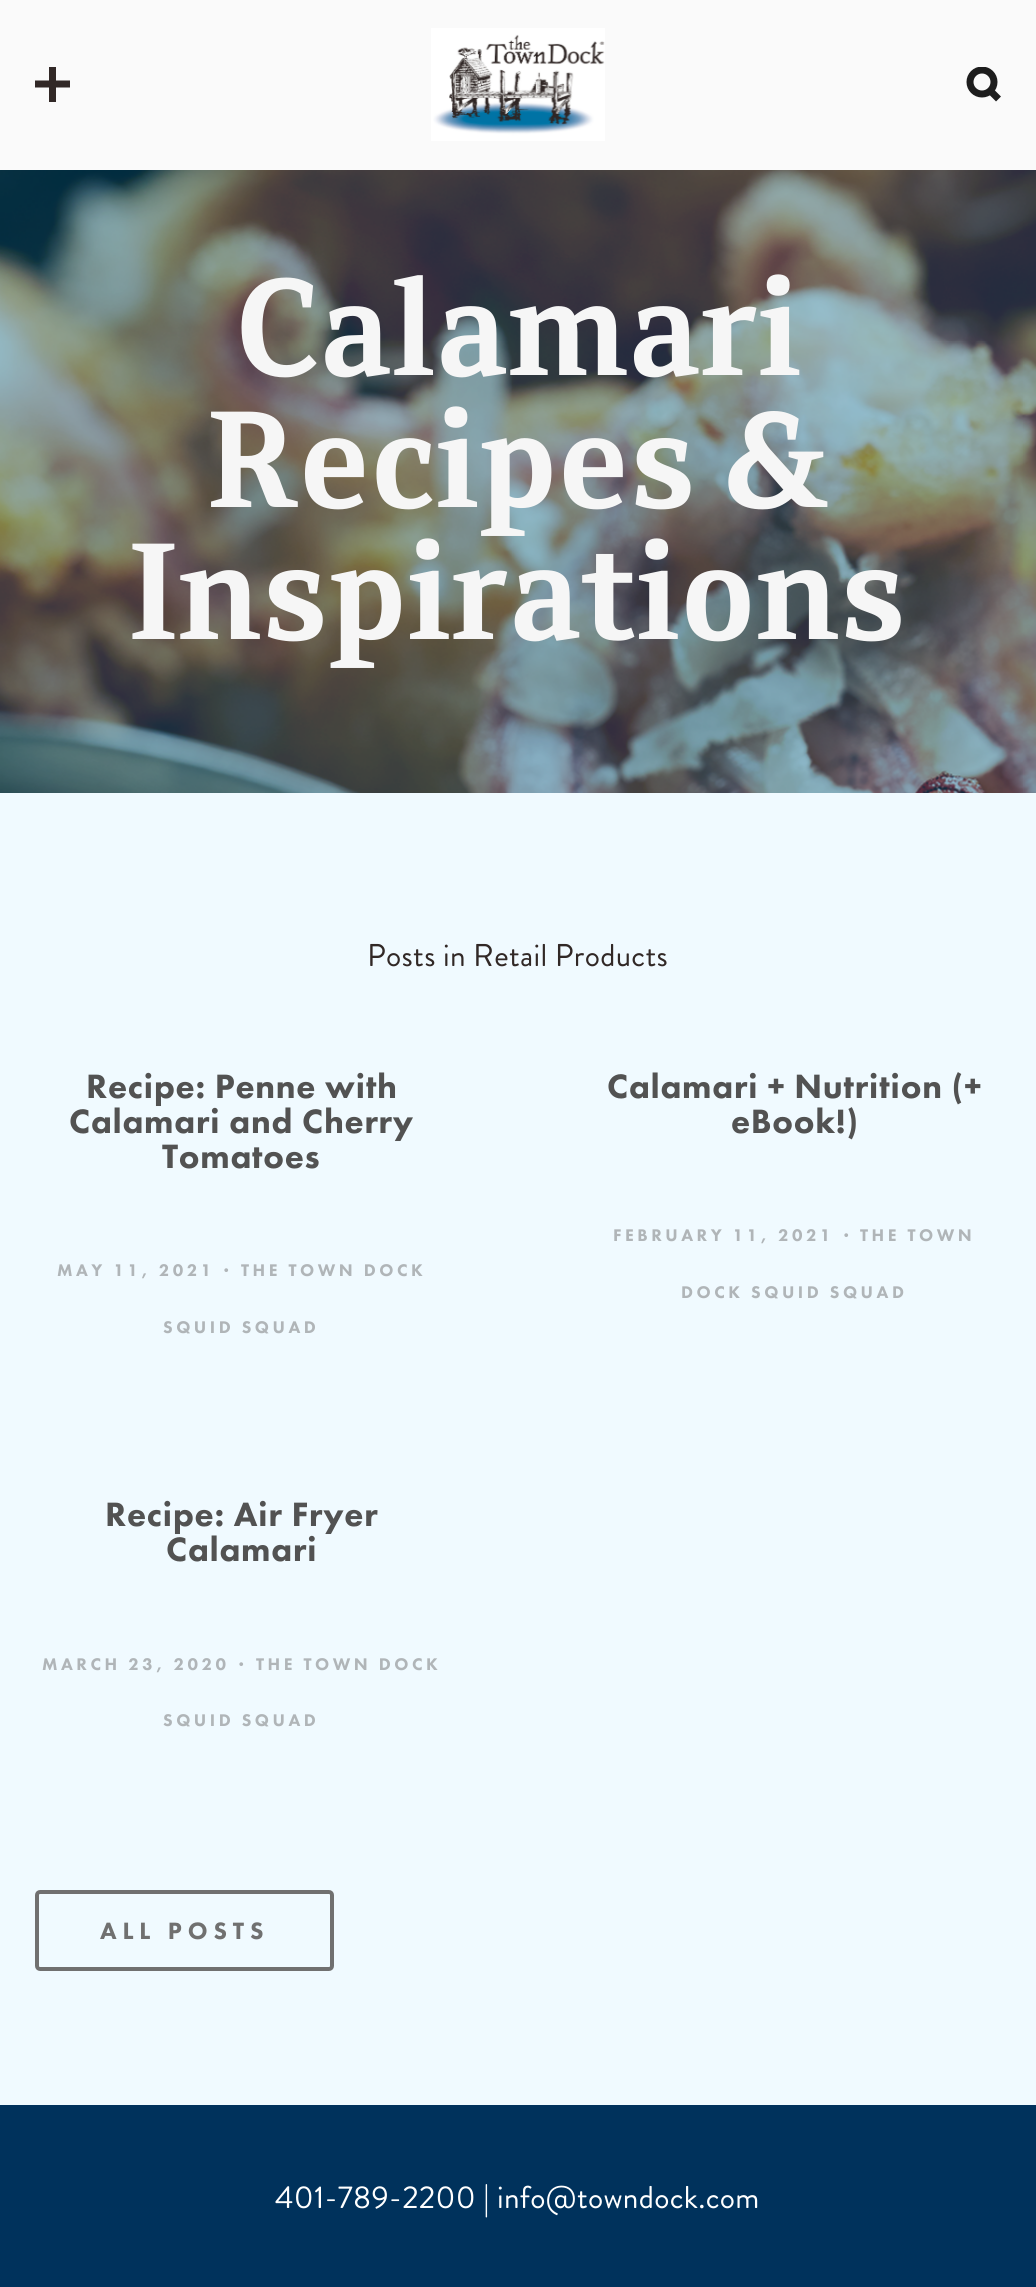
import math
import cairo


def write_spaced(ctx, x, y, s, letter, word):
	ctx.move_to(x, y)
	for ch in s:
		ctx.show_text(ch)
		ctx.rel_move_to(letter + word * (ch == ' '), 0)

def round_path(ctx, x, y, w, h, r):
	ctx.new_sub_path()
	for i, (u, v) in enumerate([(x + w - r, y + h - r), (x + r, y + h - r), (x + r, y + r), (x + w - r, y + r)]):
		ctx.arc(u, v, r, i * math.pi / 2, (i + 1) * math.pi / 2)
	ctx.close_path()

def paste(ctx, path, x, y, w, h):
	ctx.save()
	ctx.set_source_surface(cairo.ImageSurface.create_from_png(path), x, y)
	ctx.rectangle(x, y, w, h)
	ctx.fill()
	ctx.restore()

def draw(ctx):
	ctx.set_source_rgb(1, 1, 1)
	ctx.paint()
	ctx.set_source_rgb(0.98, 0.98, 0.98)
	ctx.rectangle(0, 0, 1036, 170)
	ctx.fill()
	ctx.new_path()
	ctx.move_to(35, 84)
	ctx.line_to(70, 84)
	ctx.set_source_rgb(0.192, 0.157, 0.149)
	ctx.set_line_width(7)
	ctx.stroke()
	ctx.rectangle(49, 67, 7, 35)
	ctx.fill()
	paste(ctx, 'media/1.png', 431, 28, 174, 113)
	ctx.new_path()
	ctx.move_to(990.5, 91)
	ctx.line_to(998.5, 99)
	ctx.set_source_rgb(0.114, 0.114, 0.114)
	ctx.stroke()
	ctx.save()
	ctx.rectangle(966, 67, 35, 35)
	ctx.clip()
	ctx.arc(982, 82, 12, 0, 2 * math.pi)
	ctx.stroke()
	ctx.restore()
	paste(ctx, 'media/2.png', 0, 170, 1036, 623)
	ctx.select_font_face('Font', cairo.FONT_SLANT_NORMAL, cairo.FONT_WEIGHT_BOLD)
	ctx.set_font_size(132.25)
	ctx.set_source_rgb(0.961, 0.961, 0.961)
	for x, y, s in [
		(234, 375, 'Calamari'),
		(208, 507, 'Recipes &'),
		(129, 639, 'Inspirations'),
	]:
		ctx.move_to(x, y)
		ctx.show_text(s)
	ctx.set_source_rgb(0.941, 0.98, 1)
	ctx.rectangle(0, 793, 1036, 1312)
	ctx.fill()
	ctx.select_font_face('Brandon Grotesque')
	ctx.set_font_size(31.5)
	ctx.set_source_rgb(0.192, 0.157, 0.149)
	write_spaced(ctx, 367, 966, 'Posts in Retail Products', 0.3, 0)
	ctx.select_font_face('Futura PT Black')
	ctx.set_font_size(35)
	ctx.set_source_rgb(0.322, 0.322, 0.322)
	for x, y, s in [
		(86, 1098, 'Recipe: Penne with'),
		(69, 1133, 'Calamari and Cherry'),
		(162, 1168, 'Tomatoes'),
	]:
		write_spaced(ctx, x, y, s, 0.7, 0)
	ctx.set_font_size(17.5)
	ctx.set_source_rgb(0.69, 0.71, 0.722)
	for x, y, s in [
		(57, 1276, 'MAY 11, 2021'),
		(224, 1276, '·'),
		(241, 1276, 'THE TOWN DOCK'),
		(163, 1333, 'SQUID SQUAD'),
	]:
		write_spaced(ctx, x, y, s, 3.5, 0)
	ctx.set_font_size(35)
	ctx.set_source_rgb(0.322, 0.322, 0.322)
	write_spaced(ctx, 607, 1098, 'Calamari + Nutrition (+', 0.7, 0)
	write_spaced(ctx, 731, 1133, 'eBook!)', 0.7, 0)
	ctx.set_font_size(17.5)
	ctx.set_source_rgb(0.69, 0.71, 0.722)
	for x, y, s in [
		(613, 1241, 'FEBRUARY 11, 2021'),
		(844, 1241, '·'),
		(860, 1241, 'THE TOWN'),
		(681, 1298, 'DOCK SQUID SQUAD'),
	]:
		write_spaced(ctx, x, y, s, 3.5, 0)
	ctx.set_font_size(35)
	ctx.set_source_rgb(0.322, 0.322, 0.322)
	write_spaced(ctx, 105, 1526, 'Recipe: Air Fryer', 0.7, 0)
	write_spaced(ctx, 166, 1561, 'Calamari', 0.7, 0)
	ctx.set_font_size(17.5)
	ctx.set_source_rgb(0.69, 0.71, 0.722)
	for x, y, s in [
		(42, 1670, 'MARCH 23, 2020'),
		(239, 1670, '·'),
		(256, 1670, 'THE TOWN DOCK'),
		(163, 1726, 'SQUID SQUAD'),
	]:
		write_spaced(ctx, x, y, s, 3.5, 0)
	round_path(ctx, 37, 1892, 295, 77, 3)
	ctx.set_source_rgb(0.439, 0.439, 0.439)
	ctx.set_line_width(4)
	ctx.stroke()
	ctx.set_font_size(24.5)
	write_spaced(ctx, 100, 1939, 'ALL POSTS', 5.9, 0)
	ctx.set_source_rgb(0, 0.196, 0.361)
	ctx.rectangle(0, 2105, 1036, 182)
	ctx.fill()
	ctx.select_font_face('Brandon Grotesque')
	ctx.set_font_size(31.5)
	ctx.set_source_rgb(1, 1, 1)
	write_spaced(ctx, 275, 2208, '401-789-2200 | info@towndock.com', 0.3, 0)


surface = cairo.ImageSurface(cairo.FORMAT_RGB24, 1036, 2287)
ctx = cairo.Context(surface)
options = cairo.FontOptions()
options.set_hint_metrics(cairo.HINT_METRICS_OFF)
options.set_hint_style(cairo.HINT_STYLE_NONE)
ctx.set_font_options(options)
ctx.set_miter_limit(4)
draw(ctx)
surface.write_to_png('image.png')
